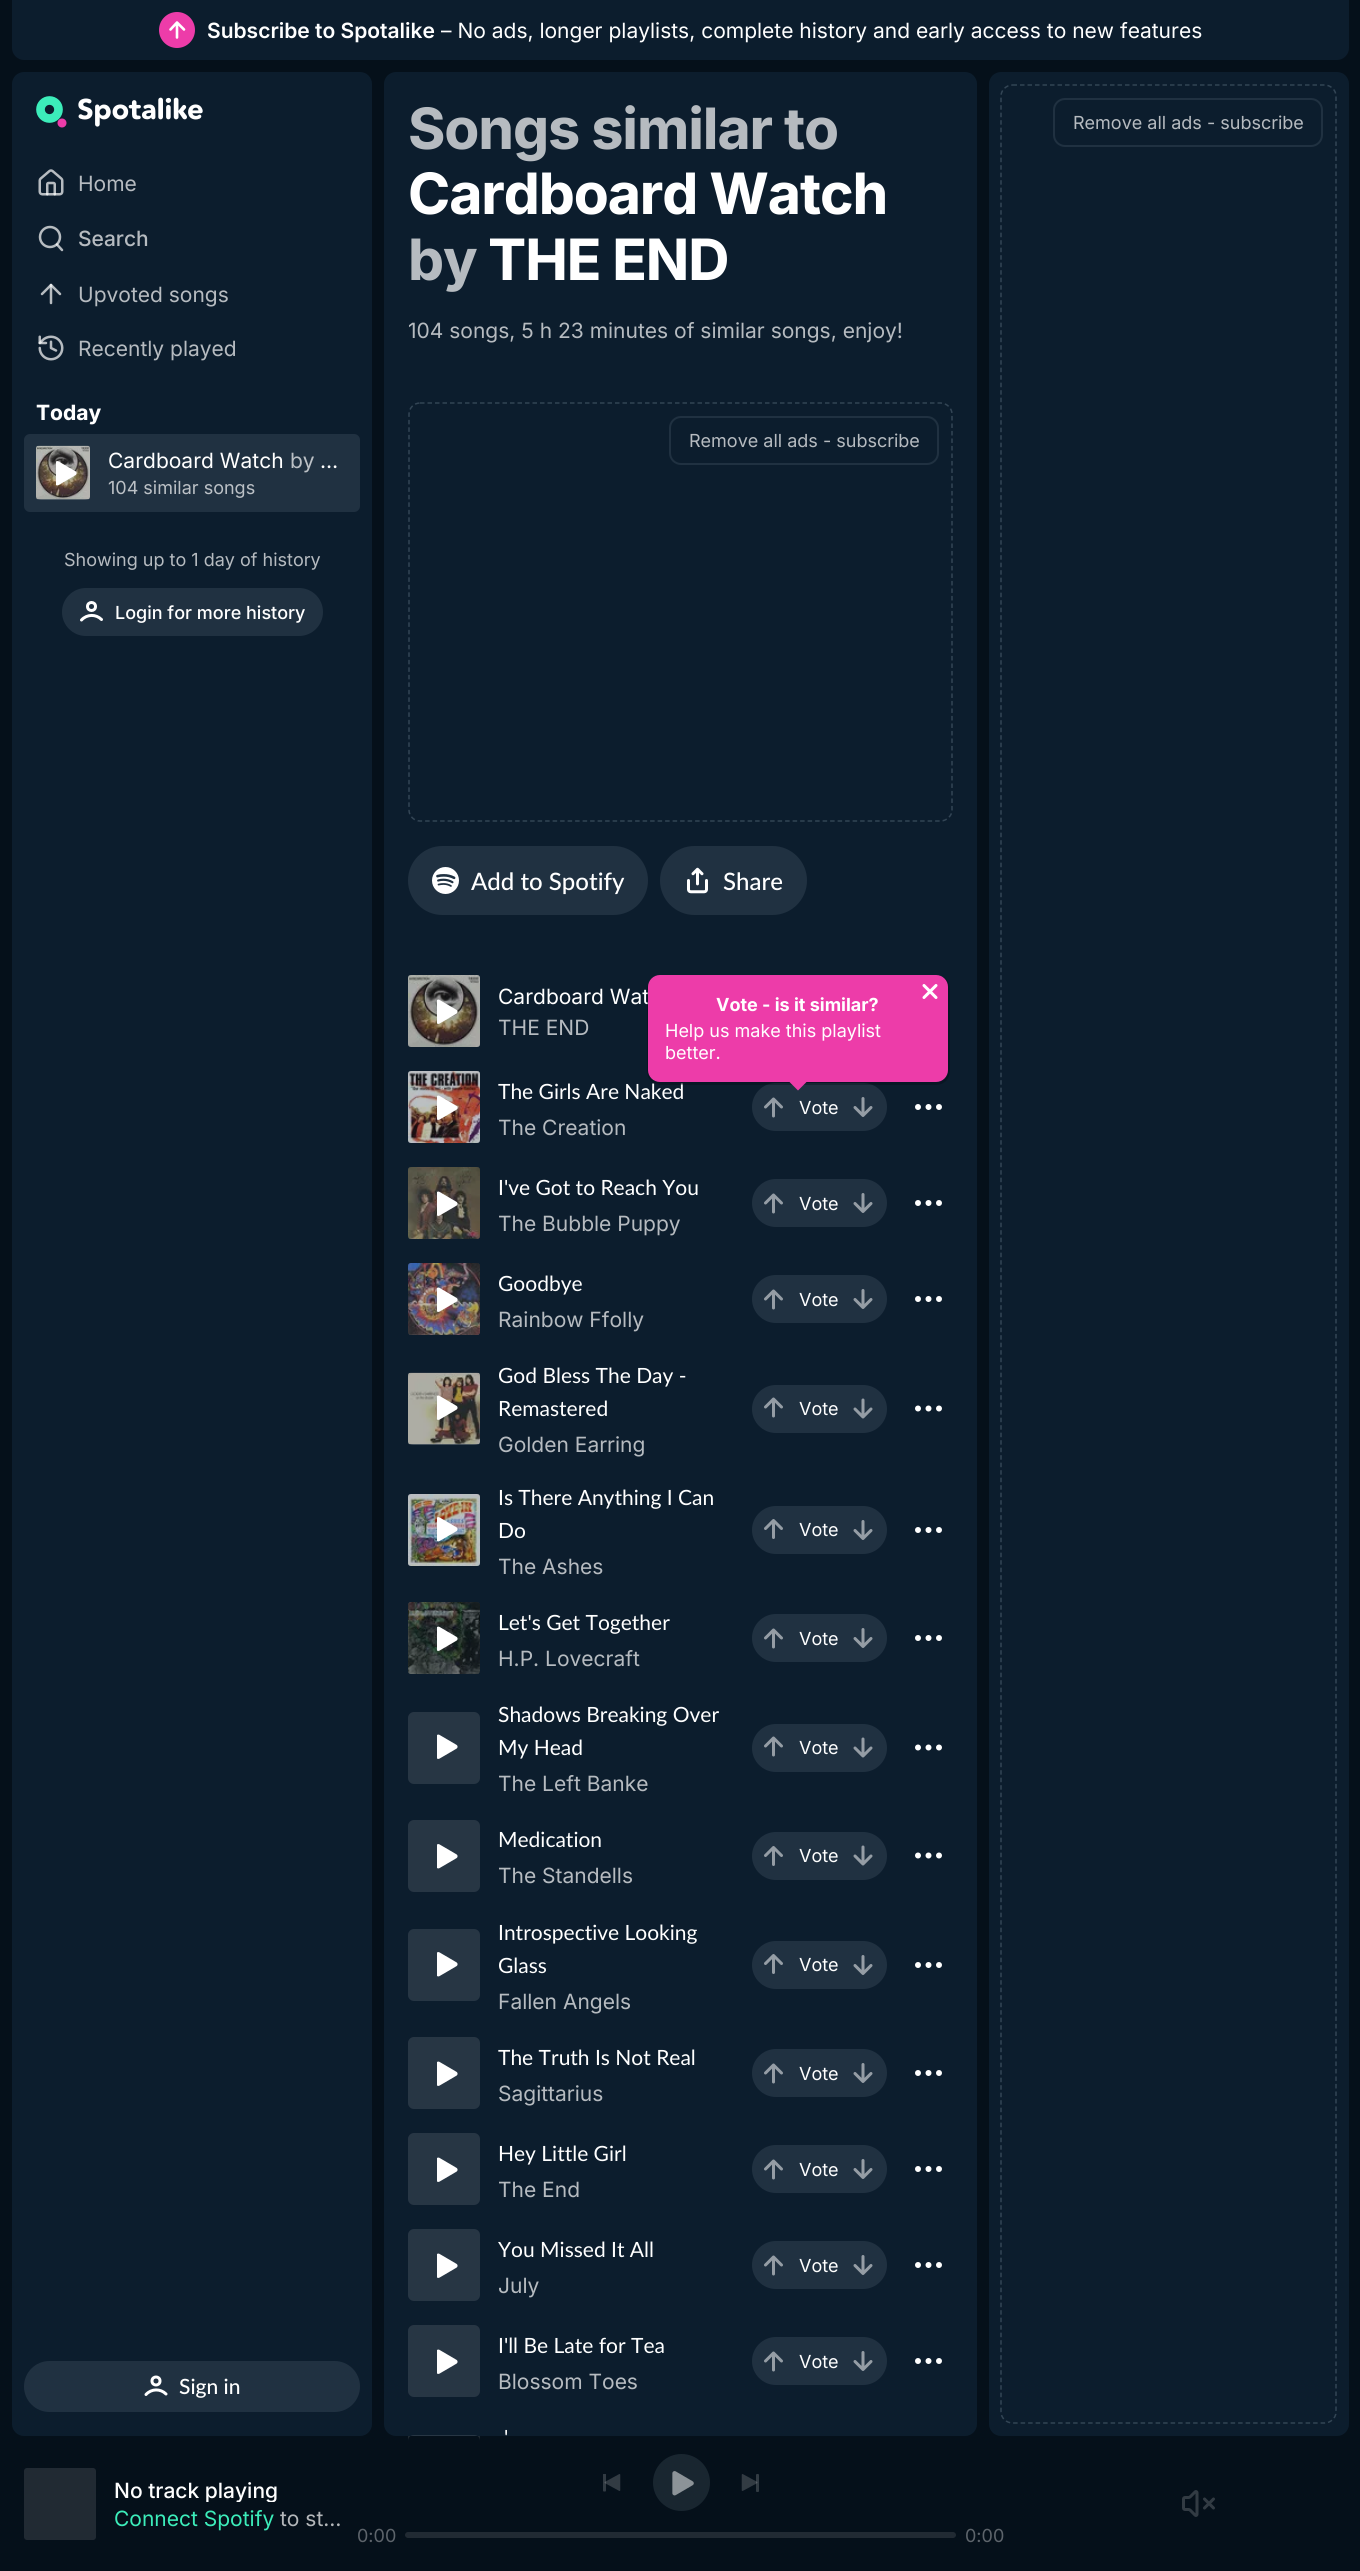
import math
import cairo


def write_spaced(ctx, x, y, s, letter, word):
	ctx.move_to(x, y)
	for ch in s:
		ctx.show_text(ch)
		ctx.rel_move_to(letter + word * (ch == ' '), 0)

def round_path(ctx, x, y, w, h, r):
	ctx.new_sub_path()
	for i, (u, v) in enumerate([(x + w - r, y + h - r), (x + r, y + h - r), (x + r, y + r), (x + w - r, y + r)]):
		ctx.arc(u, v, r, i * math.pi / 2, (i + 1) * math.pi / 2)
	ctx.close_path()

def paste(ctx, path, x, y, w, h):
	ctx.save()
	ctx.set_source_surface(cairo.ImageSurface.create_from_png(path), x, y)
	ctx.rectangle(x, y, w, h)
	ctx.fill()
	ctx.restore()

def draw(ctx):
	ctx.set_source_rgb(0.02, 0.063, 0.102)
	ctx.paint()
	ctx.set_source_rgb(0.047, 0.114, 0.176)
	ctx.new_path()
	ctx.move_to(12, 0)
	ctx.line_to(1349, 0)
	ctx.line_to(1349, 48)
	ctx.curve_to(1349, 54.5, 1343.5, 60, 1337, 60)
	ctx.line_to(24, 60)
	ctx.curve_to(17.5, 60, 12, 54.5, 12, 48)
	ctx.close_path()
	ctx.fill()
	ctx.set_source_rgb(0.929, 0.235, 0.663)
	ctx.arc(177, 30, 18, 0, 2 * math.pi)
	ctx.fill()
	ctx.new_path()
	ctx.move_to(184, 29.5)
	ctx.line_to(177, 22.5)
	ctx.line_to(170.5, 29.5)
	ctx.move_to(177, 23.5)
	ctx.line_to(177, 37.5)
	ctx.set_source_rgb(1, 1, 1)
	ctx.set_line_width(2.6)
	ctx.set_line_cap(cairo.LINE_CAP_ROUND)
	ctx.set_line_join(cairo.LINE_JOIN_ROUND)
	ctx.stroke()
	ctx.select_font_face('Inter SemiBold')
	ctx.set_font_size(21)
	ctx.move_to(207, 38)
	ctx.show_text('Subscribe to Spotalike')
	ctx.select_font_face('Inter')
	ctx.move_to(441, 38)
	ctx.show_text('– No ads, longer playlists, complete history and early access to new features')
	ctx.set_source_rgb(0.047, 0.114, 0.176)
	round_path(ctx, 384, 72, 593, 2364, 12)
	ctx.fill()
	ctx.select_font_face('Inter', cairo.FONT_SLANT_NORMAL, cairo.FONT_WEIGHT_BOLD)
	ctx.set_font_size(57)
	ctx.set_source_rgb(0.714, 0.733, 0.753)
	write_spaced(ctx, 408, 149, 'Songs similar to', -1.1, 0)
	ctx.set_source_rgb(1, 1, 1)
	write_spaced(ctx, 408, 214, 'Cardboard Watch', -1.1, 0)
	ctx.set_source_rgb(0.714, 0.733, 0.753)
	write_spaced(ctx, 408, 280, 'by', -1.1, 0)
	ctx.set_source_rgb(1, 1, 1)
	write_spaced(ctx, 488, 280, 'THE END', -1.1, 0)
	ctx.select_font_face('Inter')
	ctx.set_font_size(21)
	ctx.set_source_rgb(0.714, 0.733, 0.753)
	ctx.move_to(408, 338)
	ctx.show_text('104 songs, 5 h 23 minutes of similar songs, enjoy!')
	ctx.new_path()
	ctx.move_to(420, 403)
	ctx.line_to(940.5, 403)
	ctx.curve_to(946.5, 403, 952, 408, 952, 414)
	ctx.line_to(952, 810)
	ctx.curve_to(952, 816, 946.5, 821, 940.5, 821)
	ctx.line_to(420, 821)
	ctx.curve_to(414, 821, 409, 816, 409, 810)
	ctx.line_to(409, 414)
	ctx.curve_to(409, 408, 414, 403, 420, 403)
	ctx.close_path()
	ctx.set_source_rgb(0.2, 0.271, 0.333)
	ctx.set_line_width(1.5)
	ctx.set_line_cap(cairo.LINE_CAP_BUTT)
	ctx.set_line_join(cairo.LINE_JOIN_MITER)
	ctx.set_dash([4.5, 3])
	ctx.stroke()
	round_path(ctx, 670, 417, 268, 47, 11)
	ctx.set_source_rgb(0.125, 0.192, 0.255)
	ctx.set_line_width(2)
	ctx.set_dash([])
	ctx.stroke()
	ctx.set_font_size(18)
	ctx.set_source_rgb(0.714, 0.733, 0.753)
	ctx.move_to(689, 447)
	ctx.show_text('Remove all ads - subscribe')
	ctx.set_source_rgb(0.125, 0.192, 0.255)
	round_path(ctx, 408, 846, 240, 69, 34.5)
	ctx.fill()
	paste(ctx, 'media/1.png', 432, 867, 27, 27)
	ctx.select_font_face('Lato Medium')
	ctx.set_font_size(24)
	ctx.set_source_rgb(1, 1, 1)
	ctx.move_to(471, 890)
	ctx.show_text('Add to Spotify')
	ctx.set_source_rgb(0.125, 0.192, 0.255)
	round_path(ctx, 660, 846, 147, 69, 34.5)
	ctx.fill()
	paste(ctx, 'media/2.png', 687, 867, 21, 27)
	ctx.set_source_rgb(1, 1, 1)
	ctx.move_to(723, 890)
	ctx.show_text('Share')
	ctx.set_source_rgba(1, 1, 1, 0.08)
	round_path(ctx, 408, 975, 72, 72, 3)
	ctx.fill()
	paste(ctx, 'media/3.png', 408, 975, 72, 72)
	paste(ctx, 'media/4.png', 437, 999, 21, 25)
	ctx.select_font_face('Inter')
	ctx.set_font_size(21)
	ctx.set_source_rgb(1, 1, 1)
	ctx.move_to(498, 1004)
	ctx.show_text('Cardboard Wat')
	ctx.set_source_rgb(0.714, 0.733, 0.753)
	ctx.move_to(498, 1035)
	ctx.show_text('THE END')
	ctx.set_source_rgba(1, 1, 1, 0.08)
	round_path(ctx, 408, 1071, 72, 72, 3)
	ctx.fill()
	paste(ctx, 'media/5.png', 408, 1071, 72, 72)
	paste(ctx, 'media/6.png', 437, 1095, 21, 25)
	ctx.select_font_face('Lato')
	ctx.set_source_rgb(1, 1, 1)
	ctx.move_to(498, 1099)
	ctx.show_text('The Girls Are Naked')
	ctx.select_font_face('Inter')
	ctx.set_source_rgb(0.714, 0.733, 0.753)
	ctx.move_to(498, 1135)
	ctx.show_text('The Creation')
	ctx.set_source_rgb(0.125, 0.192, 0.255)
	round_path(ctx, 752, 1083, 135, 48, 24)
	ctx.fill()
	ctx.set_source_rgba(0.012, 0.043, 0.075, 0.33)
	ctx.new_path()
	ctx.move_to(647, 989)
	ctx.curve_to(647, 986, 648, 983, 650, 980)
	ctx.curve_to(649, 982, 648, 984, 648, 987)
	ctx.line_to(648, 1070)
	ctx.curve_to(648, 1076, 653, 1082, 660, 1082)
	ctx.line_to(936, 1082)
	ctx.curve_to(943, 1082, 948, 1076, 948, 1070)
	ctx.line_to(948, 987)
	ctx.curve_to(948, 980, 943, 975, 936, 975)
	ctx.curve_to(944, 975, 950, 981, 950, 989)
	ctx.line_to(950, 1071)
	ctx.curve_to(950, 1079, 944, 1085, 936, 1085)
	ctx.line_to(661, 1085)
	ctx.curve_to(653, 1085, 647, 1079, 647, 1071)
	ctx.close_path()
	ctx.fill()
	ctx.set_source_rgb(0.929, 0.235, 0.663)
	round_path(ctx, 648, 975, 300, 107, 12)
	ctx.fill()
	ctx.new_path()
	ctx.move_to(936, 985.5)
	ctx.line_to(924, 997.5)
	ctx.move_to(924, 985.5)
	ctx.line_to(936, 997.5)
	ctx.set_source_rgb(1, 1, 1)
	ctx.set_line_width(3)
	ctx.set_line_cap(cairo.LINE_CAP_ROUND)
	ctx.set_line_join(cairo.LINE_JOIN_ROUND)
	ctx.stroke()
	ctx.select_font_face('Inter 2', cairo.FONT_SLANT_NORMAL, cairo.FONT_WEIGHT_BOLD)
	ctx.set_font_size(18)
	ctx.move_to(716, 1011)
	ctx.show_text('Vote - is it similar?')
	ctx.select_font_face('Inter')
	ctx.move_to(665, 1037)
	ctx.show_text('Help us make this playlist')
	ctx.move_to(665, 1059)
	ctx.show_text('better.')
	ctx.set_source_rgb(0.929, 0.235, 0.663)
	ctx.new_path()
	ctx.move_to(787.5, 1080)
	ctx.line_to(808.5, 1080)
	ctx.line_to(798, 1090.5)
	ctx.close_path()
	ctx.fill()
	ctx.new_path()
	ctx.move_to(781.5, 1107)
	ctx.line_to(773.5, 1099)
	ctx.line_to(765.5, 1107)
	ctx.move_to(773.5, 1100)
	ctx.line_to(773.5, 1116)
	ctx.set_source_rgb(0.584, 0.616, 0.647)
	ctx.stroke()
	ctx.set_source_rgb(1, 1, 1)
	ctx.move_to(799, 1114)
	ctx.show_text('Vote')
	ctx.new_path()
	ctx.move_to(855, 1107.5)
	ctx.line_to(863, 1115.5)
	ctx.line_to(871, 1107.5)
	ctx.move_to(863, 1114.5)
	ctx.line_to(863, 1098.5)
	ctx.set_source_rgb(0.584, 0.616, 0.647)
	ctx.stroke()
	paste(ctx, 'media/7.png', 915, 1104, 27, 6)
	ctx.set_source_rgba(1, 1, 1, 0.08)
	round_path(ctx, 408, 1167, 72, 72, 3)
	ctx.fill()
	paste(ctx, 'media/8.png', 408, 1167, 72, 72)
	paste(ctx, 'media/9.png', 437, 1191, 21, 25)
	ctx.select_font_face('Lato')
	ctx.set_font_size(21)
	ctx.set_source_rgb(1, 1, 1)
	ctx.move_to(498, 1195)
	ctx.show_text('I\'ve Got to Reach You')
	ctx.select_font_face('Inter')
	ctx.set_source_rgb(0.714, 0.733, 0.753)
	ctx.move_to(498, 1231)
	ctx.show_text('The Bubble Puppy')
	ctx.set_source_rgb(0.125, 0.192, 0.255)
	round_path(ctx, 752, 1179, 135, 48, 24)
	ctx.fill()
	ctx.new_path()
	ctx.move_to(781.5, 1203)
	ctx.line_to(773.5, 1195)
	ctx.line_to(765.5, 1203)
	ctx.move_to(773.5, 1196)
	ctx.line_to(773.5, 1212)
	ctx.set_source_rgb(0.584, 0.616, 0.647)
	ctx.stroke()
	ctx.set_font_size(18)
	ctx.set_source_rgb(1, 1, 1)
	ctx.move_to(799, 1210)
	ctx.show_text('Vote')
	ctx.new_path()
	ctx.move_to(855, 1203.5)
	ctx.line_to(863, 1211.5)
	ctx.line_to(871, 1203.5)
	ctx.move_to(863, 1210.5)
	ctx.line_to(863, 1194.5)
	ctx.set_source_rgb(0.584, 0.616, 0.647)
	ctx.stroke()
	paste(ctx, 'media/7.png', 915, 1200, 27, 6)
	ctx.set_source_rgba(1, 1, 1, 0.08)
	round_path(ctx, 408, 1263, 72, 72, 3)
	ctx.fill()
	paste(ctx, 'media/10.png', 408, 1263, 72, 72)
	paste(ctx, 'media/11.png', 437, 1287, 21, 25)
	ctx.select_font_face('Lato')
	ctx.set_font_size(21)
	ctx.set_source_rgb(1, 1, 1)
	ctx.move_to(498, 1291)
	ctx.show_text('Goodbye')
	ctx.select_font_face('Inter')
	ctx.set_source_rgb(0.714, 0.733, 0.753)
	ctx.move_to(498, 1327)
	ctx.show_text('Rainbow Ffolly')
	ctx.set_source_rgb(0.125, 0.192, 0.255)
	round_path(ctx, 752, 1275, 135, 48, 24)
	ctx.fill()
	ctx.new_path()
	ctx.move_to(781.5, 1299)
	ctx.line_to(773.5, 1291)
	ctx.line_to(765.5, 1299)
	ctx.move_to(773.5, 1292)
	ctx.line_to(773.5, 1308)
	ctx.set_source_rgb(0.584, 0.616, 0.647)
	ctx.stroke()
	ctx.set_font_size(18)
	ctx.set_source_rgb(1, 1, 1)
	ctx.move_to(799, 1306)
	ctx.show_text('Vote')
	ctx.new_path()
	ctx.move_to(855, 1299.5)
	ctx.line_to(863, 1307.5)
	ctx.line_to(871, 1299.5)
	ctx.move_to(863, 1306.5)
	ctx.line_to(863, 1290.5)
	ctx.set_source_rgb(0.584, 0.616, 0.647)
	ctx.stroke()
	paste(ctx, 'media/7.png', 915, 1296, 27, 6)
	ctx.set_source_rgb(0.153, 0.212, 0.267)
	round_path(ctx, 408, 1373, 72, 72, 6)
	ctx.fill()
	ctx.set_source_rgba(1, 1, 1, 0.08)
	round_path(ctx, 408, 1373, 72, 72, 3)
	ctx.fill()
	paste(ctx, 'media/12.png', 408, 1372, 72, 73)
	paste(ctx, 'media/13.png', 437, 1395, 21, 25)
	ctx.select_font_face('Lato')
	ctx.set_font_size(21)
	ctx.set_source_rgb(1, 1, 1)
	ctx.move_to(498, 1383)
	ctx.show_text('God Bless The Day -')
	ctx.move_to(498, 1416)
	ctx.show_text('Remastered')
	ctx.select_font_face('Inter')
	ctx.set_source_rgb(0.714, 0.733, 0.753)
	ctx.move_to(498, 1452)
	ctx.show_text('Golden Earring')
	ctx.set_source_rgb(0.125, 0.192, 0.255)
	round_path(ctx, 752, 1385, 135, 48, 24)
	ctx.fill()
	ctx.new_path()
	ctx.move_to(781.5, 1407)
	ctx.line_to(773.5, 1399)
	ctx.line_to(765.5, 1407)
	ctx.move_to(773.5, 1400)
	ctx.line_to(773.5, 1416)
	ctx.set_source_rgb(0.584, 0.616, 0.647)
	ctx.stroke()
	ctx.set_font_size(18)
	ctx.set_source_rgb(1, 1, 1)
	ctx.move_to(799, 1415)
	ctx.show_text('Vote')
	ctx.new_path()
	ctx.move_to(855, 1409)
	ctx.line_to(863, 1417)
	ctx.line_to(871, 1409)
	ctx.move_to(863, 1416)
	ctx.line_to(863, 1400)
	ctx.set_source_rgb(0.584, 0.616, 0.647)
	ctx.stroke()
	paste(ctx, 'media/14.png', 915, 1405, 27, 7)
	ctx.set_source_rgba(1, 1, 1, 0.08)
	round_path(ctx, 408, 1494, 72, 72, 3)
	ctx.fill()
	paste(ctx, 'media/15.png', 408, 1494, 72, 72)
	paste(ctx, 'media/16.png', 437, 1517, 21, 25)
	ctx.select_font_face('Lato')
	ctx.set_font_size(21)
	ctx.set_source_rgb(1, 1, 1)
	ctx.move_to(498, 1505)
	ctx.show_text('Is There Anything I Can')
	ctx.move_to(498, 1538)
	ctx.show_text('Do')
	ctx.select_font_face('Inter')
	ctx.set_source_rgb(0.714, 0.733, 0.753)
	ctx.move_to(498, 1574)
	ctx.show_text('The Ashes')
	ctx.set_source_rgb(0.125, 0.192, 0.255)
	round_path(ctx, 752, 1506, 135, 48, 24)
	ctx.fill()
	ctx.new_path()
	ctx.move_to(781.5, 1528.5)
	ctx.line_to(773.5, 1520.5)
	ctx.line_to(765.5, 1528.5)
	ctx.move_to(773.5, 1521.5)
	ctx.line_to(773.5, 1537.5)
	ctx.set_source_rgb(0.584, 0.616, 0.647)
	ctx.stroke()
	ctx.set_font_size(18)
	ctx.set_source_rgb(1, 1, 1)
	ctx.move_to(799, 1536)
	ctx.show_text('Vote')
	ctx.new_path()
	ctx.move_to(855, 1530.5)
	ctx.line_to(863, 1538.5)
	ctx.line_to(871, 1530.5)
	ctx.move_to(863, 1537.5)
	ctx.line_to(863, 1521.5)
	ctx.set_source_rgb(0.584, 0.616, 0.647)
	ctx.stroke()
	paste(ctx, 'media/7.png', 915, 1527, 27, 6)
	ctx.set_source_rgba(1, 1, 1, 0.08)
	round_path(ctx, 408, 1602, 72, 72, 3)
	ctx.fill()
	paste(ctx, 'media/17.png', 408, 1602, 72, 72)
	paste(ctx, 'media/18.png', 437, 1626, 21, 25)
	ctx.select_font_face('Lato')
	ctx.set_font_size(21)
	ctx.set_source_rgb(1, 1, 1)
	ctx.move_to(498, 1630)
	ctx.show_text('Let\'s Get Together')
	ctx.select_font_face('Inter')
	ctx.set_source_rgb(0.714, 0.733, 0.753)
	ctx.move_to(498, 1666)
	ctx.show_text('H.P. Lovecraft')
	ctx.set_source_rgb(0.125, 0.192, 0.255)
	round_path(ctx, 752, 1614, 135, 48, 24)
	ctx.fill()
	ctx.new_path()
	ctx.move_to(781.5, 1638)
	ctx.line_to(773.5, 1630)
	ctx.line_to(765.5, 1638)
	ctx.move_to(773.5, 1631)
	ctx.line_to(773.5, 1647)
	ctx.set_source_rgb(0.584, 0.616, 0.647)
	ctx.stroke()
	ctx.set_font_size(18)
	ctx.set_source_rgb(1, 1, 1)
	ctx.move_to(799, 1645)
	ctx.show_text('Vote')
	ctx.new_path()
	ctx.move_to(855, 1638.5)
	ctx.line_to(863, 1646.5)
	ctx.line_to(871, 1638.5)
	ctx.move_to(863, 1645.5)
	ctx.line_to(863, 1629.5)
	ctx.set_source_rgb(0.584, 0.616, 0.647)
	ctx.stroke()
	paste(ctx, 'media/7.png', 915, 1635, 27, 6)
	ctx.set_source_rgb(0.153, 0.212, 0.267)
	round_path(ctx, 408, 1712, 72, 72, 6)
	ctx.fill()
	paste(ctx, 'media/19.png', 437, 1734, 21, 25)
	ctx.select_font_face('Lato')
	ctx.set_font_size(21)
	ctx.set_source_rgb(1, 1, 1)
	ctx.move_to(498, 1722)
	ctx.show_text('Shadows Breaking Over')
	ctx.move_to(498, 1755)
	ctx.show_text('My Head')
	ctx.select_font_face('Inter')
	ctx.set_source_rgb(0.714, 0.733, 0.753)
	ctx.move_to(498, 1791)
	ctx.show_text('The Left Banke')
	ctx.set_source_rgb(0.125, 0.192, 0.255)
	round_path(ctx, 752, 1724, 135, 48, 24)
	ctx.fill()
	ctx.new_path()
	ctx.move_to(781.5, 1746)
	ctx.line_to(773.5, 1738)
	ctx.line_to(765.5, 1746)
	ctx.move_to(773.5, 1739)
	ctx.line_to(773.5, 1755)
	ctx.set_source_rgb(0.584, 0.616, 0.647)
	ctx.stroke()
	ctx.set_font_size(18)
	ctx.set_source_rgb(1, 1, 1)
	ctx.move_to(799, 1754)
	ctx.show_text('Vote')
	ctx.new_path()
	ctx.move_to(855, 1748)
	ctx.line_to(863, 1756)
	ctx.line_to(871, 1748)
	ctx.move_to(863, 1755)
	ctx.line_to(863, 1739)
	ctx.set_source_rgb(0.584, 0.616, 0.647)
	ctx.stroke()
	paste(ctx, 'media/14.png', 915, 1744, 27, 7)
	ctx.set_source_rgb(0.153, 0.212, 0.267)
	round_path(ctx, 408, 1820, 72, 72, 6)
	ctx.fill()
	paste(ctx, 'media/20.png', 437, 1844, 21, 25)
	ctx.select_font_face('Lato')
	ctx.set_font_size(21)
	ctx.set_source_rgb(1, 1, 1)
	ctx.move_to(498, 1847)
	ctx.show_text('Medication')
	ctx.select_font_face('Inter')
	ctx.set_source_rgb(0.714, 0.733, 0.753)
	ctx.move_to(498, 1883)
	ctx.show_text('The Standells')
	ctx.set_source_rgb(0.125, 0.192, 0.255)
	round_path(ctx, 752, 1832, 135, 48, 24)
	ctx.fill()
	ctx.new_path()
	ctx.move_to(781.5, 1855.5)
	ctx.line_to(773.5, 1847.5)
	ctx.line_to(765.5, 1855.5)
	ctx.move_to(773.5, 1848.5)
	ctx.line_to(773.5, 1864.5)
	ctx.set_source_rgb(0.584, 0.616, 0.647)
	ctx.stroke()
	ctx.set_font_size(18)
	ctx.set_source_rgb(1, 1, 1)
	ctx.move_to(799, 1862)
	ctx.show_text('Vote')
	ctx.new_path()
	ctx.move_to(855, 1856)
	ctx.line_to(863, 1864)
	ctx.line_to(871, 1856)
	ctx.move_to(863, 1863)
	ctx.line_to(863, 1847)
	ctx.set_source_rgb(0.584, 0.616, 0.647)
	ctx.stroke()
	paste(ctx, 'media/14.png', 915, 1852, 27, 7)
	ctx.set_source_rgb(0.153, 0.212, 0.267)
	round_path(ctx, 408, 1929, 72, 72, 6)
	ctx.fill()
	paste(ctx, 'media/20.png', 437, 1952, 21, 25)
	ctx.select_font_face('Lato')
	ctx.set_font_size(21)
	ctx.set_source_rgb(1, 1, 1)
	ctx.move_to(498, 1940)
	ctx.show_text('Introspective Looking')
	ctx.move_to(498, 1973)
	ctx.show_text('Glass')
	ctx.select_font_face('Inter')
	ctx.set_source_rgb(0.714, 0.733, 0.753)
	ctx.move_to(498, 2009)
	ctx.show_text('Fallen Angels')
	ctx.set_source_rgb(0.125, 0.192, 0.255)
	round_path(ctx, 752, 1941, 135, 48, 24)
	ctx.fill()
	ctx.new_path()
	ctx.move_to(781.5, 1963.5)
	ctx.line_to(773.5, 1955.5)
	ctx.line_to(765.5, 1963.5)
	ctx.move_to(773.5, 1956.5)
	ctx.line_to(773.5, 1972.5)
	ctx.set_source_rgb(0.584, 0.616, 0.647)
	ctx.stroke()
	ctx.set_font_size(18)
	ctx.set_source_rgb(1, 1, 1)
	ctx.move_to(799, 1971)
	ctx.show_text('Vote')
	ctx.new_path()
	ctx.move_to(855, 1965.5)
	ctx.line_to(863, 1973.5)
	ctx.line_to(871, 1965.5)
	ctx.move_to(863, 1972.5)
	ctx.line_to(863, 1956.5)
	ctx.set_source_rgb(0.584, 0.616, 0.647)
	ctx.stroke()
	paste(ctx, 'media/7.png', 915, 1962, 27, 6)
	ctx.set_source_rgb(0.153, 0.212, 0.267)
	round_path(ctx, 408, 2037, 72, 72, 6)
	ctx.fill()
	paste(ctx, 'media/19.png', 437, 2061, 21, 25)
	ctx.select_font_face('Lato')
	ctx.set_font_size(21)
	ctx.set_source_rgb(1, 1, 1)
	ctx.move_to(498, 2065)
	ctx.show_text('The Truth Is Not Real')
	ctx.select_font_face('Inter')
	ctx.set_source_rgb(0.714, 0.733, 0.753)
	ctx.move_to(498, 2101)
	ctx.show_text('Sagittarius')
	ctx.set_source_rgb(0.125, 0.192, 0.255)
	round_path(ctx, 752, 2049, 135, 48, 24)
	ctx.fill()
	ctx.new_path()
	ctx.move_to(781.5, 2073)
	ctx.line_to(773.5, 2065)
	ctx.line_to(765.5, 2073)
	ctx.move_to(773.5, 2066)
	ctx.line_to(773.5, 2082)
	ctx.set_source_rgb(0.584, 0.616, 0.647)
	ctx.stroke()
	ctx.set_font_size(18)
	ctx.set_source_rgb(1, 1, 1)
	ctx.move_to(799, 2080)
	ctx.show_text('Vote')
	ctx.new_path()
	ctx.move_to(855, 2073.5)
	ctx.line_to(863, 2081.5)
	ctx.line_to(871, 2073.5)
	ctx.move_to(863, 2080.5)
	ctx.line_to(863, 2064.5)
	ctx.set_source_rgb(0.584, 0.616, 0.647)
	ctx.stroke()
	paste(ctx, 'media/7.png', 915, 2070, 27, 6)
	ctx.set_source_rgb(0.153, 0.212, 0.267)
	round_path(ctx, 408, 2133, 72, 72, 6)
	ctx.fill()
	paste(ctx, 'media/19.png', 437, 2157, 21, 25)
	ctx.select_font_face('Lato')
	ctx.set_font_size(21)
	ctx.set_source_rgb(1, 1, 1)
	ctx.move_to(498, 2161)
	ctx.show_text('Hey Little Girl')
	ctx.select_font_face('Inter')
	ctx.set_source_rgb(0.714, 0.733, 0.753)
	ctx.move_to(498, 2197)
	ctx.show_text('The End')
	ctx.set_source_rgb(0.125, 0.192, 0.255)
	round_path(ctx, 752, 2145, 135, 48, 24)
	ctx.fill()
	ctx.new_path()
	ctx.move_to(781.5, 2169)
	ctx.line_to(773.5, 2161)
	ctx.line_to(765.5, 2169)
	ctx.move_to(773.5, 2162)
	ctx.line_to(773.5, 2178)
	ctx.set_source_rgb(0.584, 0.616, 0.647)
	ctx.stroke()
	ctx.set_font_size(18)
	ctx.set_source_rgb(1, 1, 1)
	ctx.move_to(799, 2176)
	ctx.show_text('Vote')
	ctx.new_path()
	ctx.move_to(855, 2169.5)
	ctx.line_to(863, 2177.5)
	ctx.line_to(871, 2169.5)
	ctx.move_to(863, 2176.5)
	ctx.line_to(863, 2160.5)
	ctx.set_source_rgb(0.584, 0.616, 0.647)
	ctx.stroke()
	paste(ctx, 'media/7.png', 915, 2166, 27, 6)
	ctx.set_source_rgb(0.153, 0.212, 0.267)
	round_path(ctx, 408, 2229, 72, 72, 6)
	ctx.fill()
	paste(ctx, 'media/19.png', 437, 2253, 21, 25)
	ctx.select_font_face('Lato')
	ctx.set_font_size(21)
	ctx.set_source_rgb(1, 1, 1)
	ctx.move_to(498, 2257)
	ctx.show_text('You Missed It All')
	ctx.select_font_face('Inter')
	ctx.set_source_rgb(0.714, 0.733, 0.753)
	ctx.move_to(498, 2293)
	ctx.show_text('July')
	ctx.set_source_rgb(0.125, 0.192, 0.255)
	round_path(ctx, 752, 2241, 135, 48, 24)
	ctx.fill()
	ctx.new_path()
	ctx.move_to(781.5, 2265)
	ctx.line_to(773.5, 2257)
	ctx.line_to(765.5, 2265)
	ctx.move_to(773.5, 2258)
	ctx.line_to(773.5, 2274)
	ctx.set_source_rgb(0.584, 0.616, 0.647)
	ctx.stroke()
	ctx.set_font_size(18)
	ctx.set_source_rgb(1, 1, 1)
	ctx.move_to(799, 2272)
	ctx.show_text('Vote')
	ctx.new_path()
	ctx.move_to(855, 2265.5)
	ctx.line_to(863, 2273.5)
	ctx.line_to(871, 2265.5)
	ctx.move_to(863, 2272.5)
	ctx.line_to(863, 2256.5)
	ctx.set_source_rgb(0.584, 0.616, 0.647)
	ctx.stroke()
	paste(ctx, 'media/7.png', 915, 2262, 27, 6)
	ctx.set_source_rgb(0.153, 0.212, 0.267)
	round_path(ctx, 408, 2325, 72, 72, 6)
	ctx.fill()
	paste(ctx, 'media/19.png', 437, 2349, 21, 25)
	ctx.select_font_face('Lato')
	ctx.set_font_size(21)
	ctx.set_source_rgb(1, 1, 1)
	ctx.move_to(498, 2353)
	ctx.show_text('I\'ll Be Late for Tea')
	ctx.select_font_face('Inter')
	ctx.set_source_rgb(0.714, 0.733, 0.753)
	ctx.move_to(498, 2389)
	ctx.show_text('Blossom Toes')
	ctx.set_source_rgb(0.125, 0.192, 0.255)
	round_path(ctx, 752, 2337, 135, 48, 24)
	ctx.fill()
	ctx.new_path()
	ctx.move_to(781.5, 2361)
	ctx.line_to(773.5, 2353)
	ctx.line_to(765.5, 2361)
	ctx.move_to(773.5, 2354)
	ctx.line_to(773.5, 2370)
	ctx.set_source_rgb(0.584, 0.616, 0.647)
	ctx.stroke()
	ctx.set_font_size(18)
	ctx.set_source_rgb(1, 1, 1)
	ctx.move_to(799, 2368)
	ctx.show_text('Vote')
	ctx.new_path()
	ctx.move_to(855, 2361.5)
	ctx.line_to(863, 2369.5)
	ctx.line_to(871, 2361.5)
	ctx.move_to(863, 2368.5)
	ctx.line_to(863, 2352.5)
	ctx.set_source_rgb(0.584, 0.616, 0.647)
	ctx.stroke()
	paste(ctx, 'media/7.png', 915, 2358, 27, 6)
	ctx.set_source_rgba(1, 1, 1, 0.11)
	ctx.new_path()
	ctx.move_to(414, 2435)
	ctx.line_to(474, 2435)
	ctx.curve_to(477.5, 2435, 480, 2437.5, 480, 2441)
	ctx.line_to(480, 2436)
	ctx.line_to(408, 2436)
	ctx.line_to(408, 2441)
	ctx.curve_to(408, 2437.5, 410.5, 2435, 414, 2435)
	ctx.close_path()
	ctx.fill()
	ctx.select_font_face('Lato')
	ctx.set_font_size(21)
	ctx.set_source_rgb(1, 1, 1)
	ctx.move_to(504, 2445)
	ctx.show_text('\'')
	ctx.set_source_rgb(0.047, 0.114, 0.176)
	round_path(ctx, 989, 72, 360, 2364, 12)
	ctx.fill()
	ctx.new_path()
	ctx.move_to(1012.5, 85)
	ctx.line_to(1324.5, 85)
	ctx.curve_to(1330.5, 85, 1336, 90, 1336, 96)
	ctx.line_to(1336, 2412)
	ctx.curve_to(1336, 2418, 1330.5, 2423, 1324.5, 2423)
	ctx.line_to(1012.5, 2423)
	ctx.curve_to(1006.5, 2423, 1001, 2418, 1001, 2412)
	ctx.line_to(1001, 96)
	ctx.curve_to(1001, 90, 1006.5, 85, 1012.5, 85)
	ctx.close_path()
	ctx.set_source_rgb(0.2, 0.271, 0.333)
	ctx.set_line_width(1.5)
	ctx.set_line_cap(cairo.LINE_CAP_BUTT)
	ctx.set_line_join(cairo.LINE_JOIN_MITER)
	ctx.set_dash([4.5, 3])
	ctx.stroke()
	round_path(ctx, 1054, 99, 268, 47, 11)
	ctx.set_source_rgb(0.125, 0.192, 0.255)
	ctx.set_line_width(2)
	ctx.set_dash([])
	ctx.stroke()
	ctx.select_font_face('Inter')
	ctx.set_font_size(18)
	ctx.set_source_rgb(0.714, 0.733, 0.753)
	ctx.move_to(1073, 129)
	ctx.show_text('Remove all ads - subscribe')
	ctx.set_source_rgb(0.047, 0.114, 0.176)
	round_path(ctx, 12, 72, 360, 2364, 12)
	ctx.fill()
	paste(ctx, 'media/21.png', 36, 96, 167, 32)
	paste(ctx, 'media/22.png', 38, 169, 26, 27)
	ctx.set_font_size(21)
	ctx.set_source_rgb(0.714, 0.733, 0.753)
	ctx.move_to(78, 191)
	ctx.show_text('Home')
	ctx.new_path()
	ctx.move_to(62, 250)
	ctx.line_to(57, 244.5)
	ctx.set_line_width(2.5)
	ctx.set_line_cap(cairo.LINE_CAP_ROUND)
	ctx.set_line_join(cairo.LINE_JOIN_ROUND)
	ctx.stroke()
	ctx.arc(50, 237, 10, 0, 2 * math.pi)
	ctx.set_source_rgba(1, 1, 1, 0.7)
	ctx.set_line_cap(cairo.LINE_CAP_BUTT)
	ctx.set_line_join(cairo.LINE_JOIN_MITER)
	ctx.stroke()
	ctx.select_font_face('Inter Medium')
	ctx.set_source_rgb(0.714, 0.733, 0.753)
	ctx.move_to(78, 246)
	ctx.show_text('Search')
	ctx.new_path()
	ctx.move_to(42, 294)
	ctx.line_to(51, 285)
	ctx.line_to(60, 294)
	ctx.set_line_cap(cairo.LINE_CAP_ROUND)
	ctx.set_line_join(cairo.LINE_JOIN_ROUND)
	ctx.stroke()
	ctx.new_path()
	ctx.move_to(51, 303)
	ctx.line_to(51, 285)
	ctx.set_source_rgba(1, 1, 1, 0.7)
	ctx.stroke()
	ctx.select_font_face('Inter')
	ctx.set_source_rgb(0.714, 0.733, 0.753)
	ctx.move_to(78, 302)
	ctx.show_text('Upvoted songs')
	paste(ctx, 'media/23.png', 38, 335, 26, 26)
	ctx.move_to(78, 356)
	ctx.show_text('Recently played')
	ctx.select_font_face('Inter', cairo.FONT_SLANT_NORMAL, cairo.FONT_WEIGHT_BOLD)
	ctx.set_source_rgb(1, 1, 1)
	ctx.move_to(36, 420)
	ctx.show_text('Today')
	ctx.set_source_rgb(0.125, 0.192, 0.255)
	round_path(ctx, 24, 434, 336, 78, 6)
	ctx.fill()
	ctx.set_source_rgb(0.224, 0.282, 0.337)
	round_path(ctx, 36, 446, 54, 54, 6)
	ctx.fill()
	ctx.set_source_rgba(1, 1, 1, 0.08)
	round_path(ctx, 36, 446, 54, 54, 3)
	ctx.fill()
	paste(ctx, 'media/24.png', 36, 445, 54, 55)
	paste(ctx, 'media/25.png', 56, 461, 21, 25)
	ctx.select_font_face('Inter')
	ctx.set_source_rgb(1, 1, 1)
	ctx.move_to(108, 468)
	ctx.show_text('Cardboard Watch')
	ctx.set_source_rgb(0.737, 0.757, 0.776)
	ctx.move_to(290, 468)
	ctx.show_text('by')
	ctx.set_source_rgb(1, 1, 1)
	ctx.move_to(320, 468)
	ctx.show_text('…')
	ctx.set_font_size(18)
	ctx.set_source_rgb(0.737, 0.757, 0.776)
	ctx.move_to(108, 494)
	ctx.show_text('104 similar songs')
	ctx.set_source_rgb(0.714, 0.733, 0.753)
	ctx.move_to(64, 566)
	ctx.show_text('Showing up to 1 day of history')
	ctx.set_source_rgb(0.125, 0.192, 0.255)
	round_path(ctx, 62, 588, 261, 48, 24)
	ctx.fill()
	ctx.new_path()
	ctx.move_to(101.5, 619.5)
	ctx.curve_to(96, 614, 87, 614, 81.5, 620)
	ctx.set_source_rgb(1, 1, 1)
	ctx.set_line_width(3)
	ctx.stroke()
	ctx.arc(91.5, 606.5, 4, 0, 2 * math.pi)
	ctx.set_line_cap(cairo.LINE_CAP_BUTT)
	ctx.set_line_join(cairo.LINE_JOIN_MITER)
	ctx.stroke()
	ctx.select_font_face('Inter Medium')
	ctx.move_to(115, 619)
	ctx.show_text('Login for more history')
	ctx.set_source_rgb(0.125, 0.192, 0.255)
	round_path(ctx, 24, 2361, 336, 51, 25.5)
	ctx.fill()
	ctx.new_path()
	ctx.move_to(166, 2394)
	ctx.curve_to(160.5, 2388.5, 151.5, 2388.5, 146, 2394.5)
	ctx.set_source_rgb(1, 1, 1)
	ctx.set_line_cap(cairo.LINE_CAP_ROUND)
	ctx.set_line_join(cairo.LINE_JOIN_ROUND)
	ctx.stroke()
	ctx.arc(156, 2381, 4, 0, 2 * math.pi)
	ctx.set_line_cap(cairo.LINE_CAP_BUTT)
	ctx.set_line_join(cairo.LINE_JOIN_MITER)
	ctx.stroke()
	ctx.select_font_face('Lato Medium')
	ctx.set_font_size(21)
	ctx.move_to(179, 2394)
	ctx.show_text('Sign in')
	ctx.set_source_rgb(0.129, 0.165, 0.2)
	round_path(ctx, 24, 2468, 72, 72, 3)
	ctx.fill()
	ctx.save()
	ctx.rectangle(114, 2477, 234, 25)
	ctx.clip()
	ctx.select_font_face('Inter Medium')
	ctx.set_source_rgb(1, 1, 1)
	ctx.move_to(114, 2498)
	ctx.show_text('No track playing')
	ctx.restore()
	ctx.select_font_face('Inter')
	ctx.set_source_rgb(0.235, 0.929, 0.729)
	ctx.move_to(114, 2526)
	ctx.show_text('Connect Spotify')
	ctx.set_source_rgb(0.706, 0.718, 0.729)
	ctx.move_to(280, 2526)
	ctx.show_text('to st…')
	paste(ctx, 'media/26.png', 1182, 2490, 33, 27)
	paste(ctx, 'media/27.png', 603, 2474, 18, 18)
	ctx.set_source_rgb(0.098, 0.149, 0.188)
	ctx.arc(681.5, 2482.5, 28.5, 0, 2 * math.pi)
	ctx.fill()
	paste(ctx, 'media/28.png', 672, 2471, 22, 25)
	paste(ctx, 'media/29.png', 741, 2474, 18, 18)
	ctx.set_font_size(18)
	ctx.set_source_rgb(0.365, 0.392, 0.42)
	ctx.move_to(357, 2542)
	ctx.show_text('0:00')
	ctx.set_source_rgb(0.129, 0.165, 0.2)
	round_path(ctx, 405, 2532, 551, 6, 3)
	ctx.fill()
	ctx.set_source_rgb(0.365, 0.392, 0.42)
	ctx.move_to(965, 2542)
	ctx.show_text('0:00')


surface = cairo.ImageSurface(cairo.FORMAT_RGB24, 1360, 2571)
ctx = cairo.Context(surface)
options = cairo.FontOptions()
options.set_hint_metrics(cairo.HINT_METRICS_OFF)
options.set_hint_style(cairo.HINT_STYLE_NONE)
ctx.set_font_options(options)
ctx.set_miter_limit(4)
draw(ctx)
surface.write_to_png('image.png')
